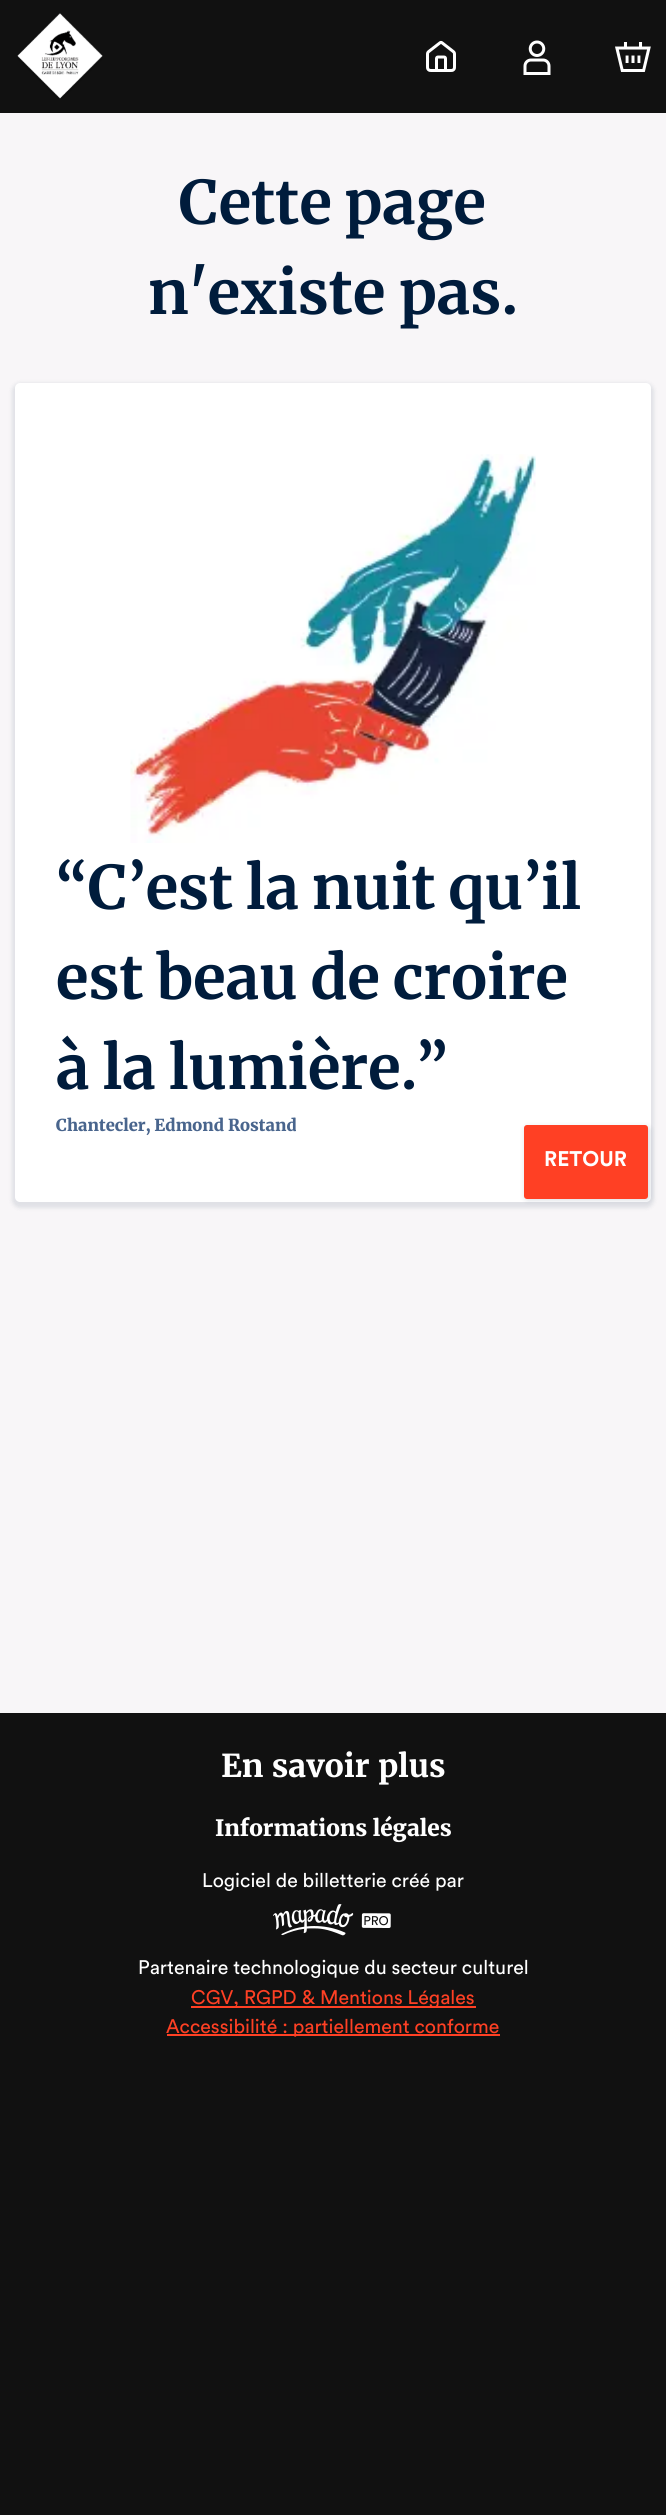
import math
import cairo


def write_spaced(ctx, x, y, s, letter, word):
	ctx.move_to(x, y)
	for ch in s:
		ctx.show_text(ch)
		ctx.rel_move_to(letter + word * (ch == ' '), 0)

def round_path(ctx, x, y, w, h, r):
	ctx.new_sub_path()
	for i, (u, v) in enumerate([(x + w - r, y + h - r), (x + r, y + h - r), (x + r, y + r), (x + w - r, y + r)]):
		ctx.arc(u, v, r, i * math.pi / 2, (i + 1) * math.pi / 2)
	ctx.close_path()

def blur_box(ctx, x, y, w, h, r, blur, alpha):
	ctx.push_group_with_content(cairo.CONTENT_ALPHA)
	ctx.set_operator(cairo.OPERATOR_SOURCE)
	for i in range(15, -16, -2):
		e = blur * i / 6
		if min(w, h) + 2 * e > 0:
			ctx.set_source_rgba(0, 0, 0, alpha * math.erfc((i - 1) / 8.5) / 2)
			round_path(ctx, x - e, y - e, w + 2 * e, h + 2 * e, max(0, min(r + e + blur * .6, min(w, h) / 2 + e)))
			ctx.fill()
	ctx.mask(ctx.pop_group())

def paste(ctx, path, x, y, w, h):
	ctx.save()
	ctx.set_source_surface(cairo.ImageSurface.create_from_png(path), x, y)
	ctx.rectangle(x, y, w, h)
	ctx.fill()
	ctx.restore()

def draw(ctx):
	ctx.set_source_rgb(0.969, 0.961, 0.969)
	ctx.paint()
	ctx.set_source_rgb(0.067, 0.067, 0.067)
	ctx.rectangle(0, 0, 666, 113)
	ctx.fill()
	paste(ctx, 'media/1.png', 17, 13, 86, 86)
	paste(ctx, 'media/2.png', 426, 40, 30, 32)
	paste(ctx, 'media/3.png', 523, 40, 28, 35)
	paste(ctx, 'media/4.png', 615, 42, 36, 30)
	ctx.select_font_face('Merriweather', cairo.FONT_SLANT_NORMAL, cairo.FONT_WEIGHT_BOLD)
	ctx.set_font_size(60)
	ctx.set_source_rgb(0, 0.11, 0.235)
	write_spaced(ctx, 179, 224, 'Cette page', 0, -2)
	write_spaced(ctx, 148, 314, 'n\'existe pas.', 0, -1)
	ctx.set_source_rgb(0, 0.11, 0.235)
	blur_box(ctx, 12, 383, 642, 825, 8, 2, 0.1)
	ctx.set_source_rgb(1, 1, 1)
	round_path(ctx, 15, 383, 636, 819, 5)
	ctx.fill()
	paste(ctx, 'media/5.png', 130, 454, 406, 389)
	ctx.set_source_rgb(0, 0.11, 0.235)
	ctx.move_to(56, 909)
	ctx.show_text('“')
	write_spaced(ctx, 88, 909, 'C’est la nuit qu’il', 0, -1.5)
	write_spaced(ctx, 56, 999, 'est beau de croire', 0, -1.5)
	write_spaced(ctx, 56, 1089, 'à la lumière.', 0, -1)
	ctx.move_to(416, 1089)
	ctx.show_text('”')
	ctx.select_font_face('Merriweather Black')
	ctx.set_font_size(16.5)
	ctx.set_source_rgb(0.286, 0.396, 0.553)
	ctx.move_to(56, 1131)
	ctx.show_text('Chantecler, Edmond Rostand')
	ctx.set_source_rgb(0, 0.11, 0.235)
	blur_box(ctx, 525, 1127, 125, 73, 3, 3, 0.15)
	ctx.set_source_rgb(1, 0.251, 0.141)
	round_path(ctx, 524, 1125, 124, 74, 3)
	ctx.fill()
	ctx.select_font_face('Circular', cairo.FONT_SLANT_NORMAL, cairo.FONT_WEIGHT_BOLD)
	ctx.set_font_size(21)
	ctx.set_source_rgb(1, 1, 1)
	ctx.move_to(544, 1166)
	ctx.show_text('RETOUR')
	ctx.set_source_rgb(0.067, 0.067, 0.067)
	ctx.rectangle(0, 1713, 666, 802)
	ctx.fill()
	ctx.select_font_face('Merriweather ExtraBold')
	ctx.set_font_size(31.5)
	ctx.set_source_rgb(1, 1, 1)
	write_spaced(ctx, 221, 1777, 'En savoir plus', 0, 1)
	ctx.select_font_face('Merriweather Black')
	ctx.set_font_size(22.5)
	ctx.move_to(215, 1836)
	ctx.show_text('Informations légales')
	ctx.select_font_face('Circular')
	ctx.set_font_size(19.5)
	ctx.move_to(202, 1887)
	ctx.show_text('Logiciel de billetterie créé par')
	paste(ctx, 'media/6.png', 273, 1904, 118, 32)
	ctx.move_to(138, 1974)
	ctx.show_text('Partenaire technologique du secteur culturel')
	ctx.set_source_rgb(1, 0.251, 0.141)
	ctx.rectangle(191, 2006, 285, 2)
	ctx.fill()
	ctx.move_to(191, 2004)
	ctx.show_text('CGV, RGPD & Mentions Légales')
	ctx.rectangle(167, 2034, 333, 2)
	ctx.fill()
	ctx.move_to(166, 2033)
	ctx.show_text('Accessibilité : partiellement conforme')


surface = cairo.ImageSurface(cairo.FORMAT_RGB24, 666, 2515)
ctx = cairo.Context(surface)
options = cairo.FontOptions()
options.set_hint_metrics(cairo.HINT_METRICS_OFF)
options.set_hint_style(cairo.HINT_STYLE_NONE)
ctx.set_font_options(options)
ctx.set_miter_limit(4)
draw(ctx)
surface.write_to_png('image.png')
